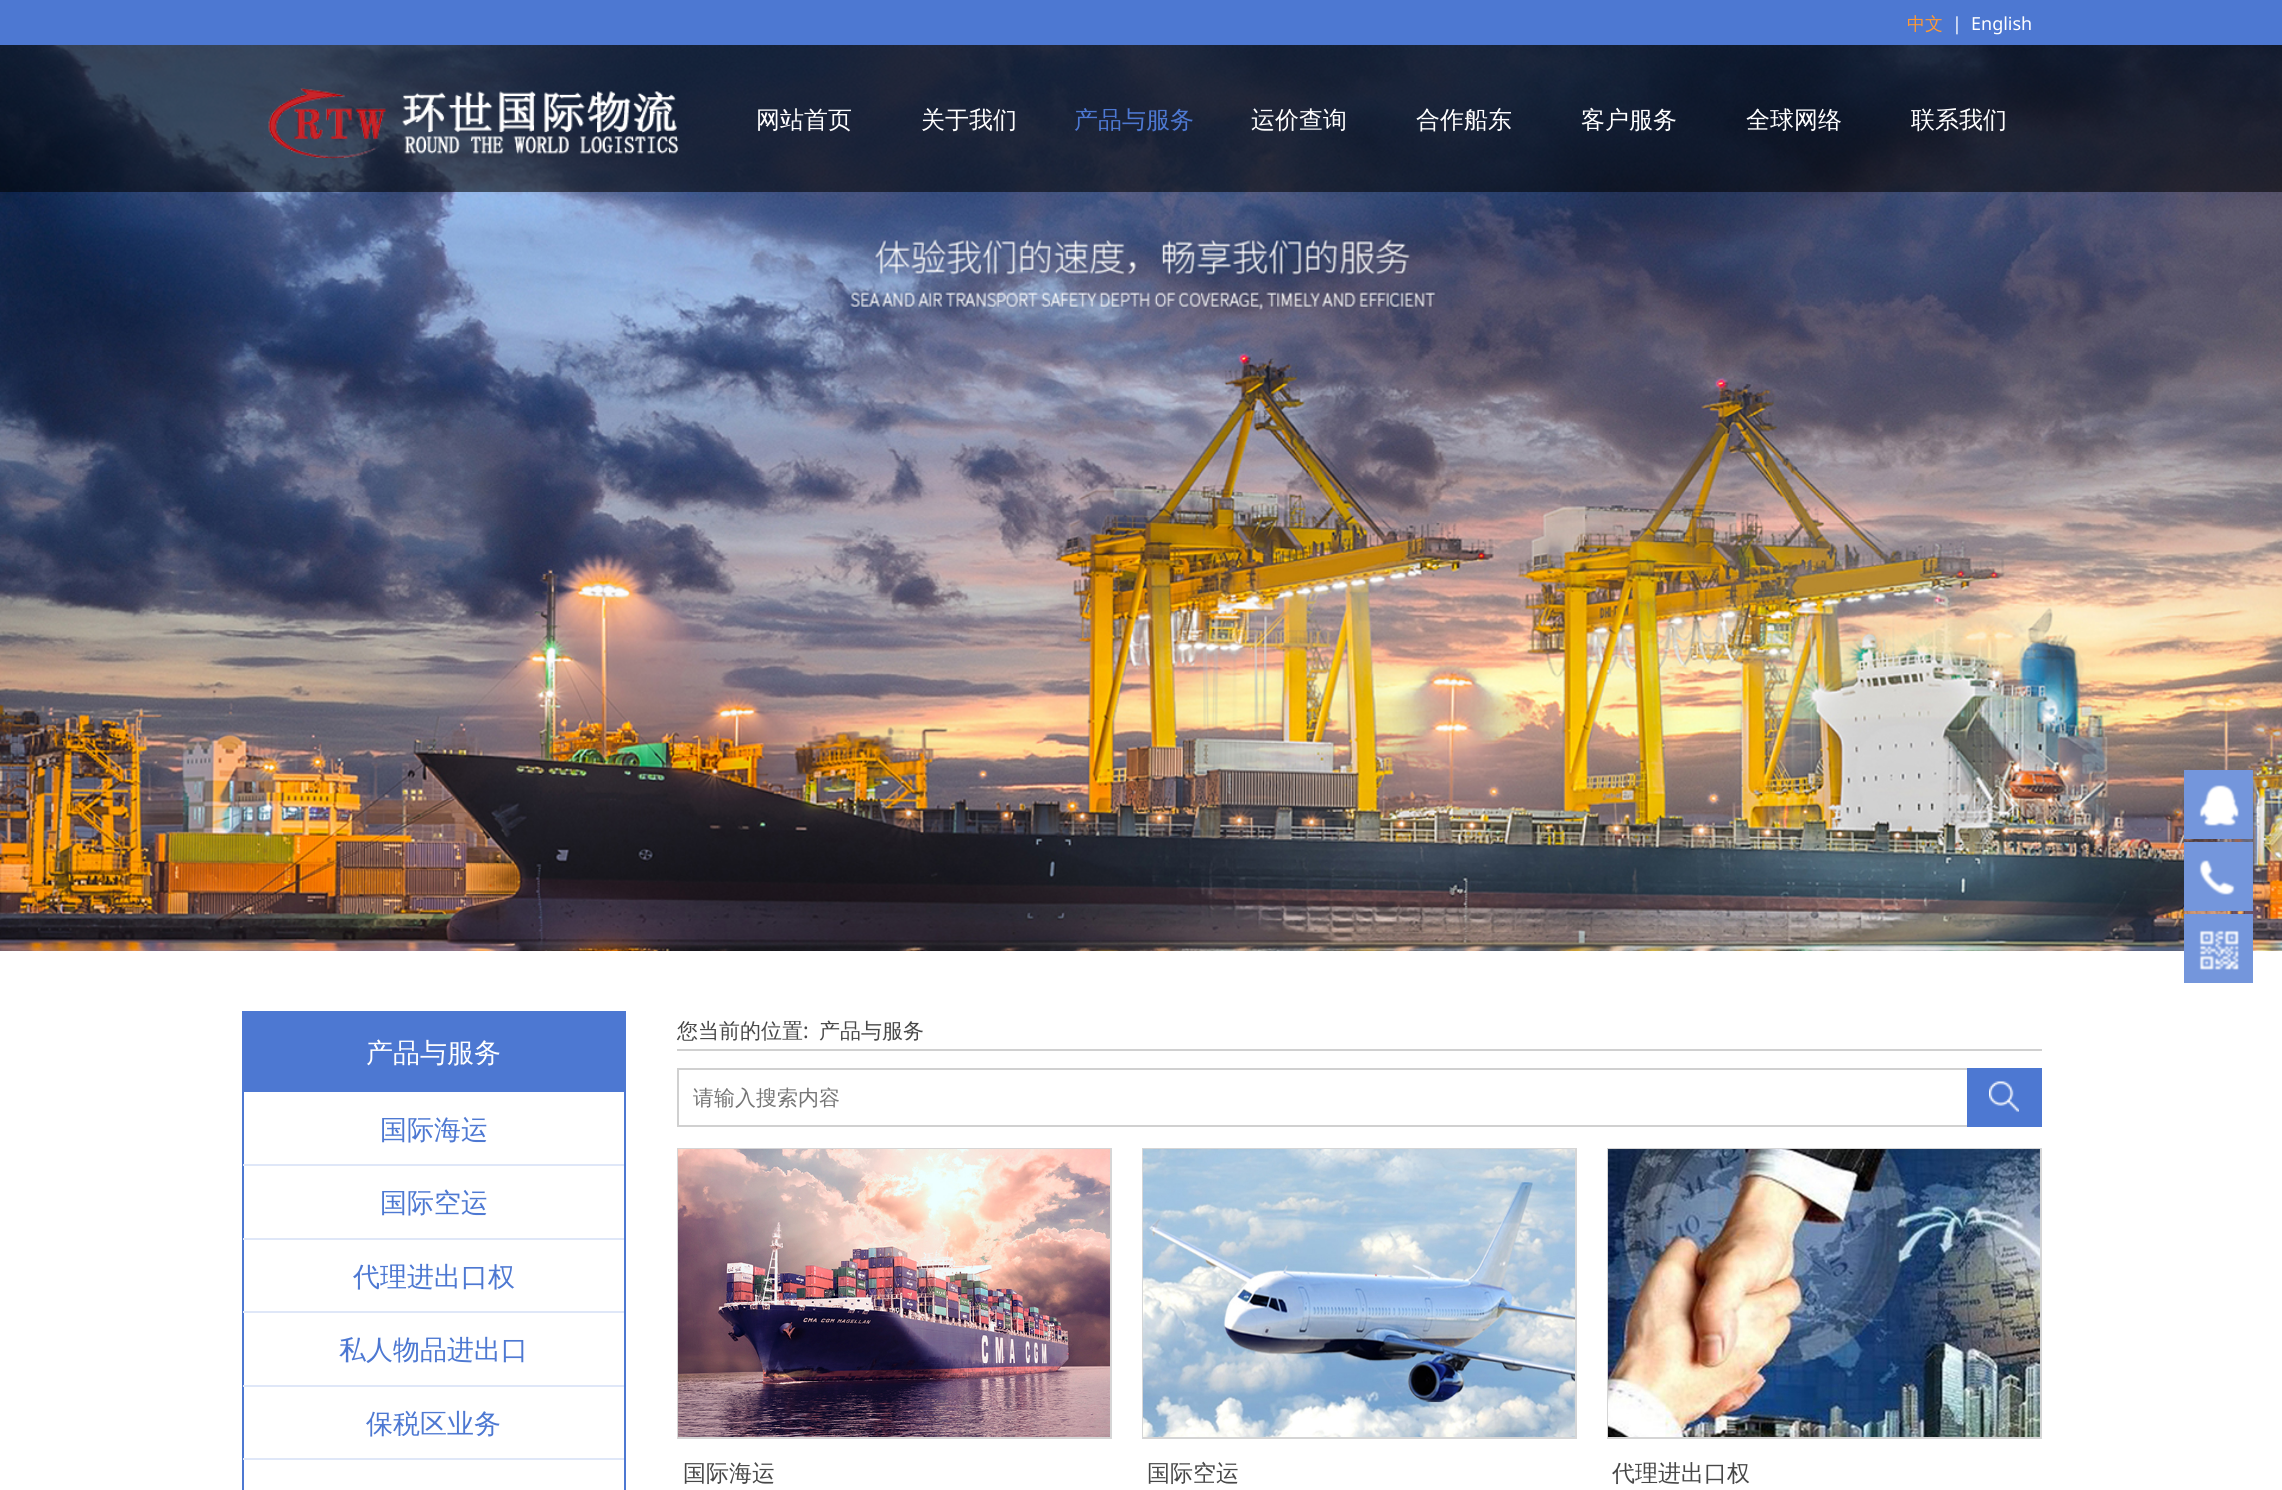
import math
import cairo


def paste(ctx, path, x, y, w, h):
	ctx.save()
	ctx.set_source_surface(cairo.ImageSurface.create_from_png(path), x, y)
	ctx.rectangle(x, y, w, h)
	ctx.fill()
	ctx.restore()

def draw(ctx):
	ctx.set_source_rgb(1, 1, 1)
	ctx.paint()
	ctx.set_source_rgb(0.302, 0.471, 0.824)
	ctx.rectangle(0, 0, 2282, 45)
	ctx.fill()
	ctx.select_font_face('WenQuanYi Zen Hei Medium')
	ctx.set_font_size(18)
	ctx.set_source_rgb(1, 0.6, 0.2)
	ctx.move_to(1907, 30)
	ctx.show_text('中文')
	ctx.select_font_face('Noto Sans')
	ctx.set_source_rgb(1, 1, 1)
	ctx.move_to(1952, 30)
	ctx.show_text('|')
	ctx.move_to(1971, 30)
	ctx.show_text('English')
	paste(ctx, 'media/2.png', 0, 45, 2282, 906)
	ctx.set_source_rgba(0, 0, 0, 0.57)
	ctx.rectangle(0, 45, 2282, 147)
	ctx.fill()
	paste(ctx, 'media/1.png', 264, 88, 415, 72)
	ctx.select_font_face('WenQuanYi Zen Hei Medium')
	ctx.set_font_size(24)
	ctx.set_source_rgb(1, 1, 1)
	ctx.move_to(756, 128)
	ctx.show_text('网站首页')
	ctx.move_to(921, 128)
	ctx.show_text('关于我们')
	ctx.set_source_rgb(0.302, 0.471, 0.824)
	ctx.move_to(1074, 128)
	ctx.show_text('产品与服务')
	ctx.set_source_rgb(1, 1, 1)
	for x, y, s in [
		(1251, 128, '运价查询'),
		(1416, 128, '合作船东'),
		(1581, 128, '客户服务'),
		(1746, 128, '全球网络'),
		(1911, 128, '联系我们'),
	]:
		ctx.move_to(x, y)
		ctx.show_text(s)
	ctx.set_source_rgb(0.455, 0.588, 0.863)
	ctx.rectangle(2184, 770, 69, 69)
	ctx.fill()
	paste(ctx, 'media/3.png', 2199, 785, 40, 41)
	ctx.rectangle(2184, 842, 69, 69)
	ctx.fill()
	paste(ctx, 'media/4.png', 2199, 860, 36, 35)
	ctx.rectangle(2184, 914, 69, 69)
	ctx.fill()
	paste(ctx, 'media/5.png', 2199, 930, 40, 40)
	ctx.rectangle(243, 1012, 382, 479)
	ctx.set_source_rgb(0.302, 0.471, 0.824)
	ctx.stroke()
	ctx.rectangle(244, 1013, 380, 79)
	ctx.fill()
	ctx.set_font_size(27)
	ctx.set_source_rgb(1, 1, 1)
	ctx.move_to(366, 1062)
	ctx.show_text('产品与服务')
	ctx.set_source_rgb(0.875, 0.906, 0.969)
	ctx.rectangle(243, 1164, 381, 2)
	ctx.fill()
	ctx.set_source_rgb(0.302, 0.471, 0.824)
	ctx.move_to(380, 1139)
	ctx.show_text('国际海运')
	ctx.set_source_rgb(0.875, 0.906, 0.969)
	ctx.rectangle(243, 1238, 381, 2)
	ctx.fill()
	ctx.set_source_rgb(0.302, 0.471, 0.824)
	ctx.move_to(380, 1212)
	ctx.show_text('国际空运')
	ctx.set_source_rgb(0.875, 0.906, 0.969)
	ctx.rectangle(243, 1311, 381, 2)
	ctx.fill()
	ctx.set_source_rgb(0.302, 0.471, 0.824)
	ctx.move_to(353, 1286)
	ctx.show_text('代理进出口权')
	ctx.set_source_rgb(0.875, 0.906, 0.969)
	ctx.rectangle(243, 1385, 381, 2)
	ctx.fill()
	ctx.set_source_rgb(0.302, 0.471, 0.824)
	ctx.move_to(339, 1359)
	ctx.show_text('私人物品进出口')
	ctx.set_source_rgb(0.875, 0.906, 0.969)
	ctx.rectangle(243, 1458, 381, 2)
	ctx.fill()
	ctx.set_source_rgb(0.302, 0.471, 0.824)
	ctx.move_to(366, 1433)
	ctx.show_text('保税区业务')
	ctx.set_source_rgb(0.816, 0.816, 0.816)
	ctx.rectangle(677, 1049, 1365, 2)
	ctx.fill()
	ctx.set_font_size(21)
	ctx.set_source_rgb(0.278, 0.278, 0.278)
	ctx.move_to(677, 1038)
	ctx.show_text('您当前的位置')
	ctx.select_font_face('Noto Sans')
	ctx.move_to(803, 1038)
	ctx.show_text(':')
	ctx.select_font_face('WenQuanYi Zen Hei Medium')
	ctx.move_to(819, 1038)
	ctx.show_text('产品与服务')
	ctx.rectangle(678, 1069, 1363, 57)
	ctx.set_source_rgb(0.816, 0.816, 0.816)
	ctx.stroke()
	ctx.set_source_rgb(0.459, 0.459, 0.459)
	ctx.move_to(693, 1105)
	ctx.show_text('请输入搜索内容')
	ctx.set_source_rgb(0.302, 0.471, 0.824)
	ctx.rectangle(1967, 1068, 75, 59)
	ctx.fill()
	paste(ctx, 'media/6.png', 1989, 1081, 30, 31)
	ctx.rectangle(678, 1149, 433, 289)
	ctx.set_source_rgb(0.835, 0.835, 0.835)
	ctx.stroke()
	paste(ctx, 'media/7.png', 678, 1149, 432, 288)
	ctx.set_font_size(23)
	ctx.set_source_rgb(0.278, 0.278, 0.278)
	ctx.move_to(683, 1481)
	ctx.show_text('国际海运')
	ctx.rectangle(1143, 1149, 433, 289)
	ctx.set_source_rgb(0.835, 0.835, 0.835)
	ctx.stroke()
	paste(ctx, 'media/8.png', 1143, 1149, 432, 288)
	ctx.set_source_rgb(0.278, 0.278, 0.278)
	ctx.move_to(1147, 1481)
	ctx.show_text('国际空运')
	ctx.rectangle(1608, 1149, 433, 289)
	ctx.set_source_rgb(0.835, 0.835, 0.835)
	ctx.stroke()
	paste(ctx, 'media/9.png', 1608, 1149, 432, 288)
	ctx.set_source_rgb(0.278, 0.278, 0.278)
	ctx.move_to(1612, 1481)
	ctx.show_text('代理进出口权')


surface = cairo.ImageSurface(cairo.FORMAT_RGB24, 2282, 1490)
ctx = cairo.Context(surface)
options = cairo.FontOptions()
options.set_hint_metrics(cairo.HINT_METRICS_OFF)
options.set_hint_style(cairo.HINT_STYLE_NONE)
ctx.set_font_options(options)
ctx.set_miter_limit(4)
draw(ctx)
surface.write_to_png('image.png')
